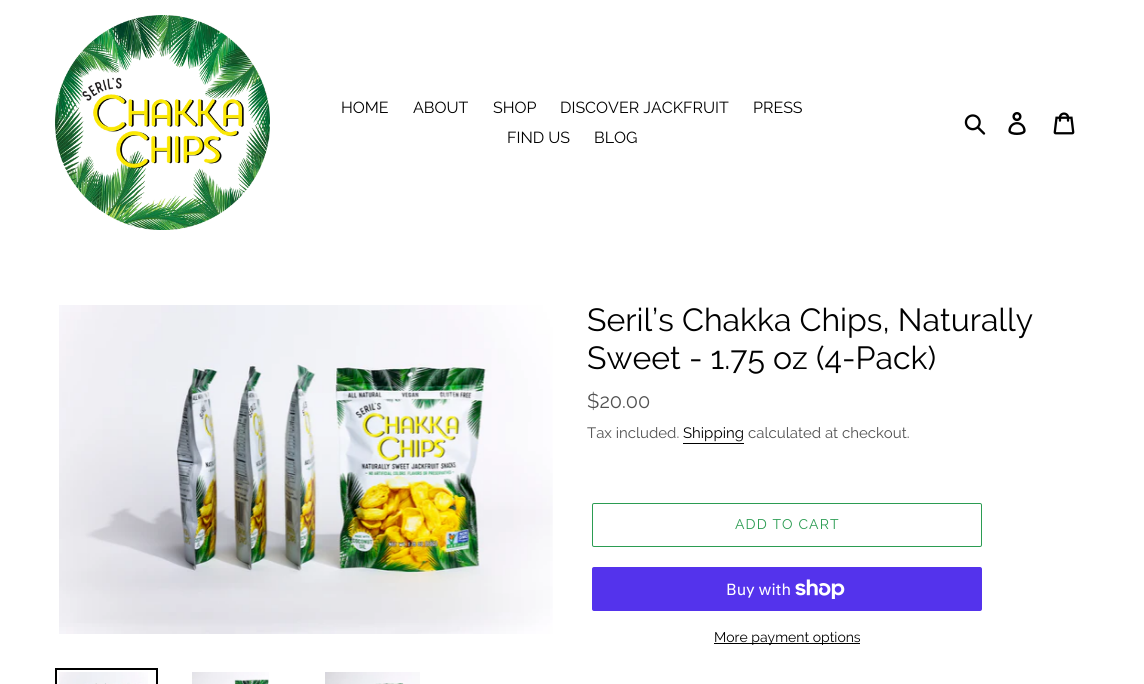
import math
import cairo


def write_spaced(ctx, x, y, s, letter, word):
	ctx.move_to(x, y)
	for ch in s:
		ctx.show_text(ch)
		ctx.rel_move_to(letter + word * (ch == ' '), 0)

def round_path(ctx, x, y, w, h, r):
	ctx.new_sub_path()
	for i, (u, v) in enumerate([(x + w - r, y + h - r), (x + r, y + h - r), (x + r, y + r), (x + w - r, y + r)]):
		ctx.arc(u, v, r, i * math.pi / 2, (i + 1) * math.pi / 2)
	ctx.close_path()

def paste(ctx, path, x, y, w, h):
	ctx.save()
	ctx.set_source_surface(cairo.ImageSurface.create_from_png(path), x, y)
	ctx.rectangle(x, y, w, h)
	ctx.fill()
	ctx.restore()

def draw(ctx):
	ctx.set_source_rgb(1, 1, 1)
	ctx.paint()
	paste(ctx, 'media/1.png', 55, 15, 215, 215)
	ctx.select_font_face('Raleway')
	ctx.set_font_size(16)
	ctx.set_source_rgb(0, 0, 0)
	for x, y, s in [
		(341, 113, 'HOME'),
		(413, 113, 'ABOUT'),
		(493, 113, 'SHOP'),
		(560, 113, 'DISCOVER JACKFRUIT'),
		(753, 113, 'PRESS'),
		(507, 143, 'FIND US'),
		(594, 143, 'BLOG'),
	]:
		ctx.move_to(x, y)
		ctx.show_text(s)
	paste(ctx, 'media/2.png', 964, 114, 22, 21)
	paste(ctx, 'media/3.png', 1008, 112, 18, 23)
	paste(ctx, 'media/4.png', 1053, 112, 22, 23)
	paste(ctx, 'media/5.png', 59, 305, 494, 329)
	ctx.rectangle(56, 669, 101, 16)
	ctx.stroke()
	paste(ctx, 'media/6.png', 59, 672, 89, 12)
	paste(ctx, 'media/7.png', 192, 672, 77, 12)
	paste(ctx, 'media/8.png', 325, 672, 95, 12)
	ctx.set_font_size(32)
	ctx.move_to(587, 331)
	ctx.show_text('Seril’s Chakka Chips, Naturally')
	ctx.move_to(587, 369)
	ctx.show_text('Sweet - 1.75 oz (4-Pack)')
	ctx.set_font_size(20)
	ctx.set_source_rgb(0.318, 0.318, 0.318)
	ctx.move_to(587, 408)
	ctx.show_text('$20.00')
	ctx.set_font_size(15)
	ctx.move_to(587, 438)
	ctx.show_text('Tax included.')
	ctx.set_source_rgb(0, 0, 0)
	ctx.move_to(683, 438)
	ctx.show_text('Shipping')
	ctx.rectangle(683, 443, 61, 1)
	ctx.fill()
	ctx.set_source_rgb(0.318, 0.318, 0.318)
	ctx.move_to(748, 438)
	ctx.show_text('calculated at checkout.')
	round_path(ctx, 592.5, 503.5, 389, 43, 1.5)
	ctx.set_source_rgb(0.169, 0.612, 0.322)
	ctx.set_line_width(1)
	ctx.stroke()
	ctx.set_font_size(14)
	write_spaced(ctx, 735, 529, 'ADD TO CART', 1.1, 0)
	ctx.set_source_rgb(0.329, 0.2, 0.922)
	round_path(ctx, 592, 567, 390, 44, 2)
	ctx.fill()
	ctx.select_font_face('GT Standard')
	ctx.set_font_size(16)
	ctx.set_source_rgb(1, 1, 1)
	ctx.move_to(726, 595)
	ctx.show_text('Buy with')
	paste(ctx, 'media/9.png', 795, 579, 50, 20)
	ctx.set_source_rgb(0, 0, 0)
	ctx.rectangle(714, 643, 146, 1)
	ctx.fill()
	ctx.select_font_face('Raleway')
	ctx.set_font_size(14)
	ctx.move_to(714, 642)
	ctx.show_text('More payment options')


surface = cairo.ImageSurface(cairo.FORMAT_RGB24, 1144, 684)
ctx = cairo.Context(surface)
options = cairo.FontOptions()
options.set_hint_metrics(cairo.HINT_METRICS_OFF)
options.set_hint_style(cairo.HINT_STYLE_NONE)
ctx.set_font_options(options)
ctx.set_miter_limit(4)
draw(ctx)
surface.write_to_png('image.png')
